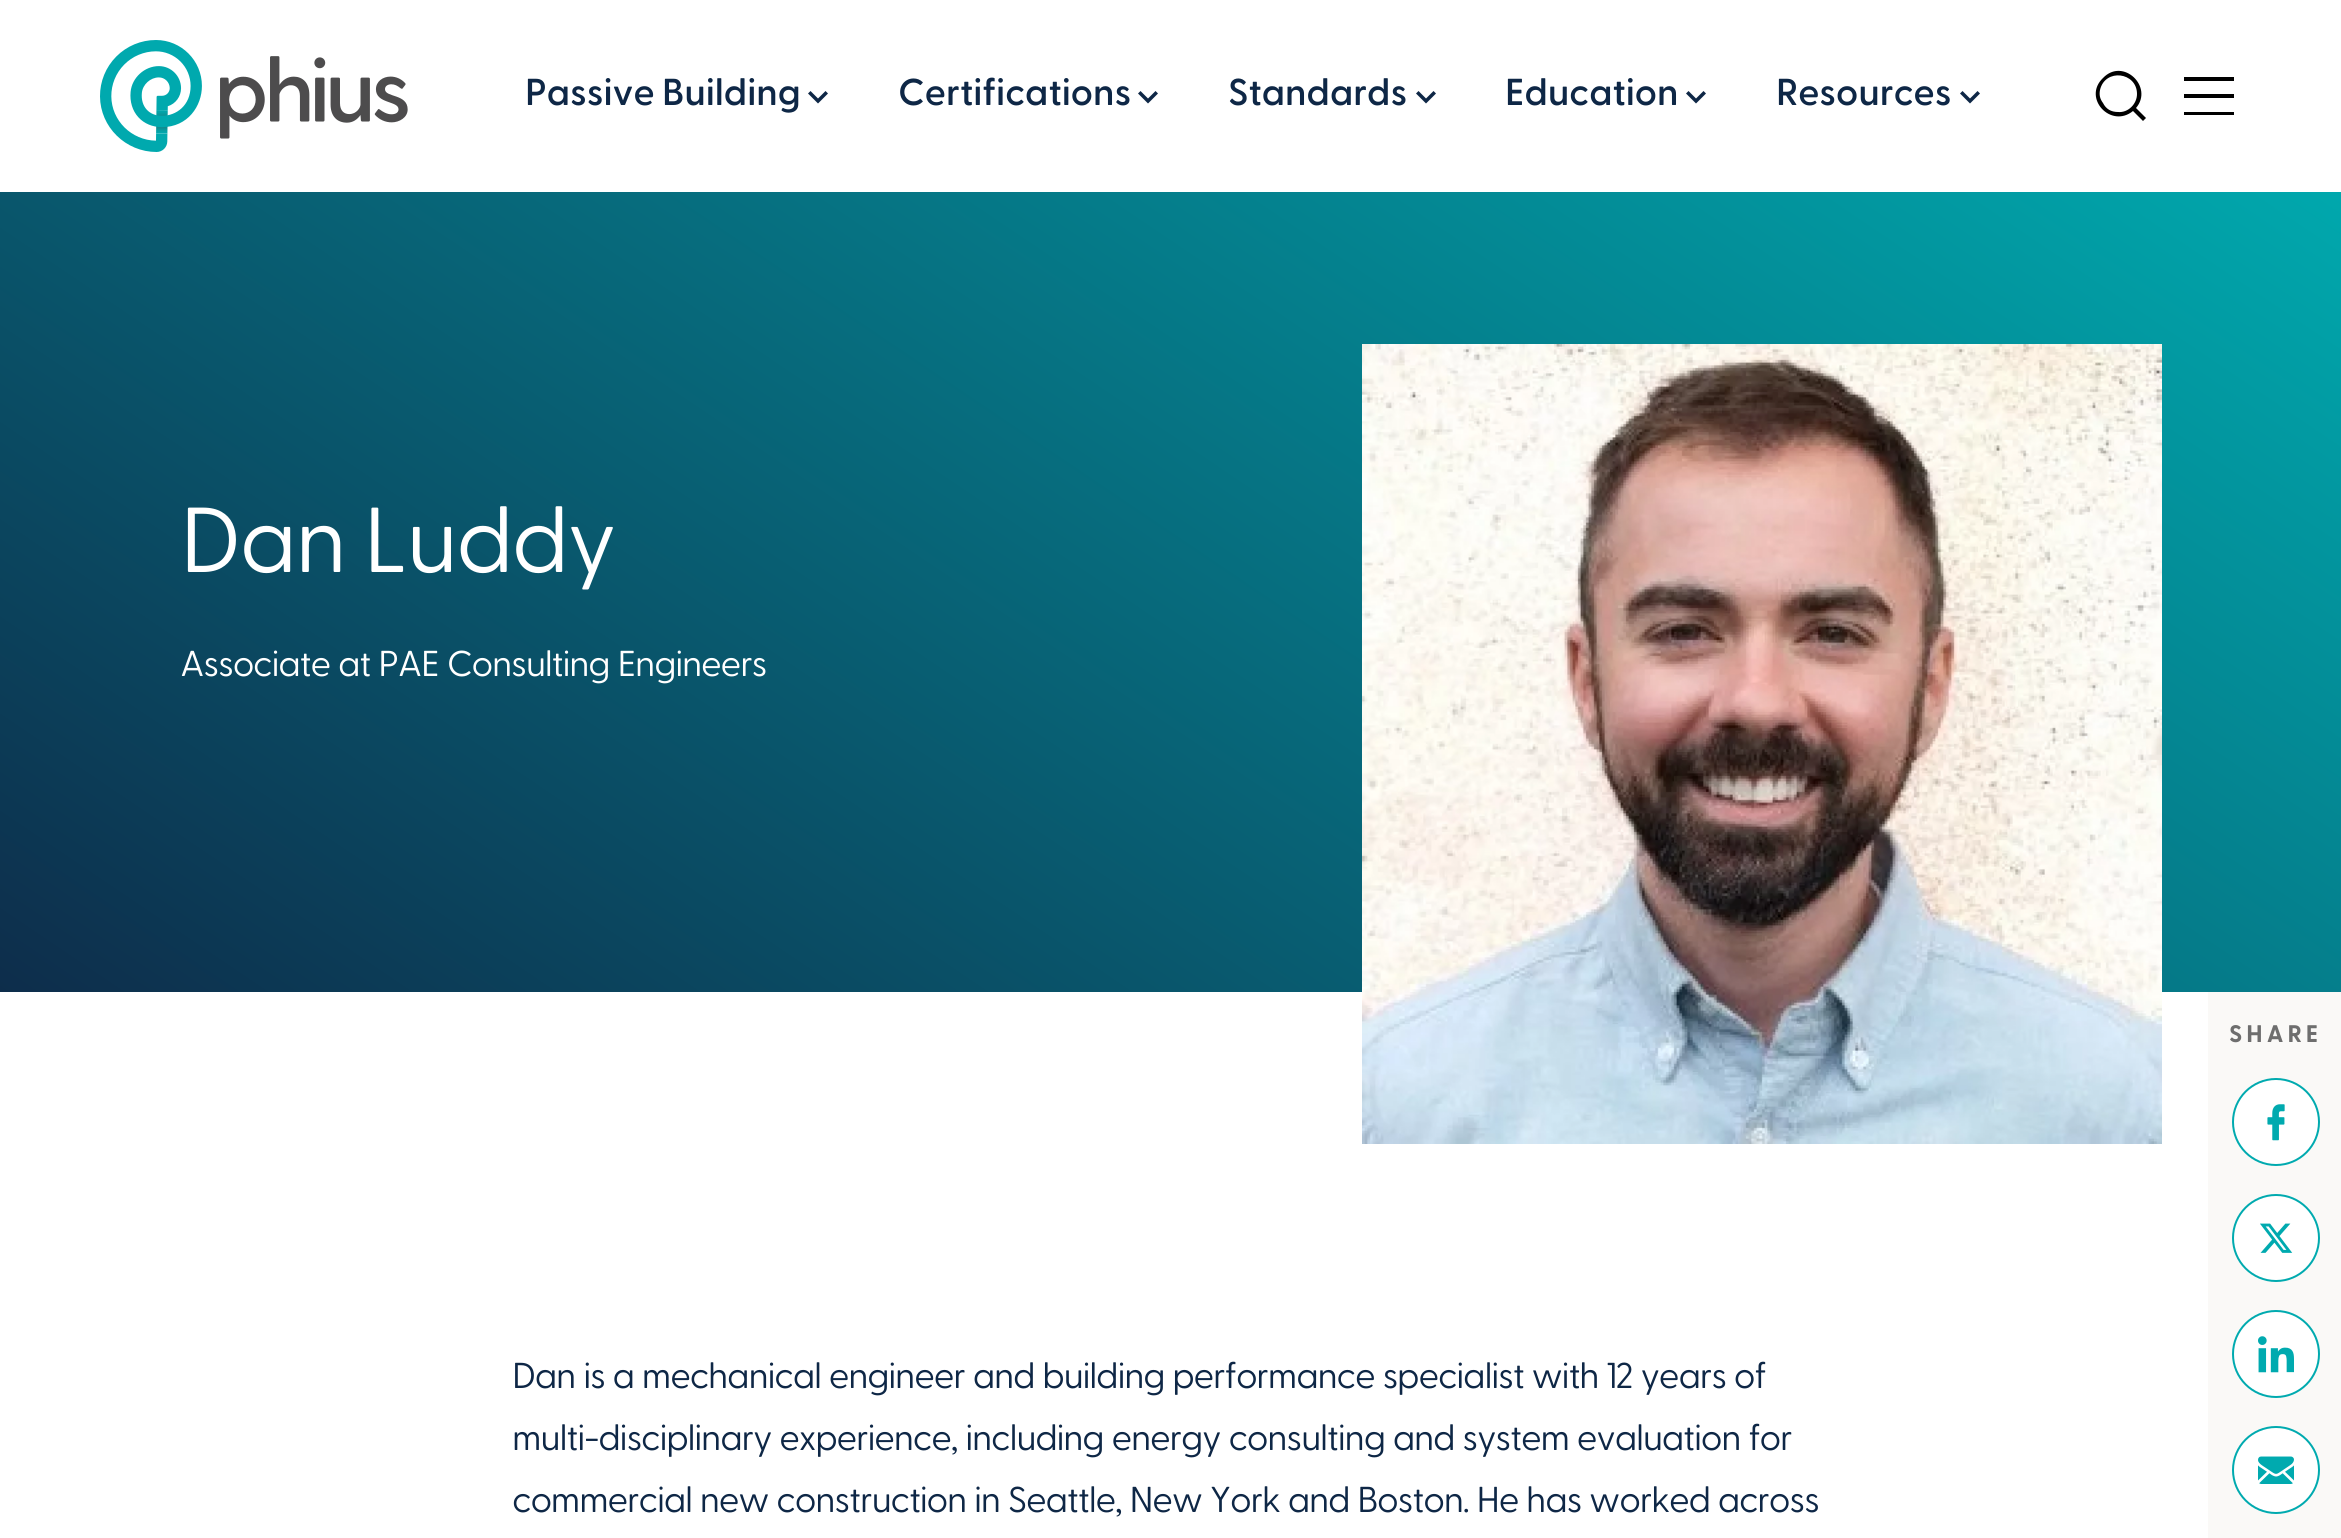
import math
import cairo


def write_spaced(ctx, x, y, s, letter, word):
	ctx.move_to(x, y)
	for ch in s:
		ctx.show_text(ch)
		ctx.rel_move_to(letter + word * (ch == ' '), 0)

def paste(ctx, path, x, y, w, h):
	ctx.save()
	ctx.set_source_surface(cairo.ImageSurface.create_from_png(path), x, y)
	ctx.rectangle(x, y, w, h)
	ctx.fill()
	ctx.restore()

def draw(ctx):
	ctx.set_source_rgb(1, 1, 1)
	ctx.paint()
	paste(ctx, 'media/1.png', 100, 40, 308, 112)
	ctx.select_font_face('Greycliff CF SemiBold')
	ctx.set_font_size(37.5)
	ctx.set_source_rgb(0.055, 0.153, 0.275)
	ctx.move_to(525, 105)
	ctx.show_text('Passive Building')
	ctx.new_path()
	ctx.move_to(828, 93.5)
	ctx.line_to(818, 103.5)
	ctx.line_to(808, 93.5)
	ctx.line_to(810.5, 91)
	ctx.line_to(818, 98.5)
	ctx.line_to(825.5, 91)
	ctx.close_path()
	ctx.fill()
	ctx.move_to(898, 105)
	ctx.show_text('Certifications')
	ctx.new_path()
	ctx.move_to(1158, 93.5)
	ctx.line_to(1148, 103.5)
	ctx.line_to(1138, 93.5)
	ctx.line_to(1140.5, 91)
	ctx.line_to(1148, 98.5)
	ctx.line_to(1155.5, 91)
	ctx.close_path()
	ctx.fill()
	ctx.move_to(1228, 105)
	ctx.show_text('Standards')
	ctx.new_path()
	ctx.move_to(1436, 93.5)
	ctx.line_to(1426, 103.5)
	ctx.line_to(1416, 93.5)
	ctx.line_to(1418.5, 91)
	ctx.line_to(1426, 98.5)
	ctx.line_to(1433.5, 91)
	ctx.close_path()
	ctx.fill()
	ctx.move_to(1505, 105)
	ctx.show_text('Education')
	ctx.new_path()
	ctx.move_to(1706, 93.5)
	ctx.line_to(1696, 103.5)
	ctx.line_to(1686, 93.5)
	ctx.line_to(1688.5, 91)
	ctx.line_to(1696, 98.5)
	ctx.line_to(1703.5, 91)
	ctx.close_path()
	ctx.fill()
	ctx.move_to(1776, 105)
	ctx.show_text('Resources')
	ctx.new_path()
	ctx.move_to(1980, 93.5)
	ctx.line_to(1970, 103.5)
	ctx.line_to(1960, 93.5)
	ctx.line_to(1962.5, 91)
	ctx.line_to(1970, 98.5)
	ctx.line_to(1977.5, 91)
	ctx.close_path()
	ctx.fill()
	ctx.set_source_rgb(0, 0, 0)
	ctx.new_path()
	ctx.move_to(2133, 111)
	ctx.line_to(2143, 121)
	ctx.line_to(2146, 118)
	ctx.line_to(2136, 108)
	ctx.curve_to(2154, 87, 2123, 57, 2103, 78)
	ctx.curve_to(2082, 98, 2111, 129, 2133, 111)
	ctx.close_path()
	ctx.move_to(2137, 94)
	ctx.curve_to(2137, 104, 2128, 113, 2118, 112)
	ctx.curve_to(2111, 112, 2106, 109, 2103, 103)
	ctx.curve_to(2100, 99, 2099, 95, 2100, 90)
	ctx.curve_to(2105, 68, 2137, 72, 2137, 94)
	ctx.close_path()
	ctx.fill()
	ctx.new_path()
	ctx.move_to(2184, 77)
	ctx.line_to(2184, 81)
	ctx.line_to(2234, 81)
	ctx.line_to(2234, 77)
	ctx.close_path()
	ctx.move_to(2184, 94)
	ctx.line_to(2184, 98)
	ctx.line_to(2234, 98)
	ctx.line_to(2234, 94)
	ctx.close_path()
	ctx.move_to(2184, 115)
	ctx.line_to(2234, 115)
	ctx.line_to(2234, 112)
	ctx.line_to(2184, 112)
	ctx.close_path()
	ctx.fill()
	gradient = cairo.LinearGradient(564, 1492, 1745, -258)
	gradient.add_color_stop_rgba(0, 0.055, 0.153, 0.275, 1)
	gradient.add_color_stop_rgba(1, 0, 0.667, 0.686, 1)
	ctx.set_source(gradient)
	ctx.rectangle(0, 192, 2341, 800)
	ctx.fill()
	ctx.select_font_face('Greycliff CF')
	ctx.set_font_size(92)
	ctx.set_source_rgb(1, 1, 1)
	write_spaced(ctx, 180, 572, 'Dan Luddy', -2, 2)
	ctx.set_font_size(36)
	write_spaced(ctx, 180, 676, 'Associate at PAE Consulting Engineers', -1.25, 2)
	paste(ctx, 'media/2.png', 1362, 344, 800, 800)
	ctx.set_source_rgb(0.98, 0.976, 0.965)
	ctx.rectangle(2208, 992, 133, 546)
	ctx.fill()
	ctx.select_font_face('Greycliff CF', cairo.FONT_SLANT_NORMAL, cairo.FONT_WEIGHT_BOLD)
	ctx.set_font_size(24)
	ctx.set_source_rgb(0.431, 0.431, 0.431)
	write_spaced(ctx, 2229, 1042, 'SHARE', 4, 0)
	ctx.set_source_rgb(1, 1, 1)
	ctx.new_path()
	ctx.arc(2276, 1122, 43, 0, 2 * math.pi)
	ctx.fill_preserve()
	ctx.set_source_rgb(0, 0.667, 0.686)
	ctx.stroke()
	paste(ctx, 'media/3.png', 2267, 1104, 18, 37)
	ctx.set_source_rgb(1, 1, 1)
	ctx.arc(2276, 1238, 43, 0, 2 * math.pi)
	ctx.fill_preserve()
	ctx.set_source_rgb(0, 0.667, 0.686)
	ctx.stroke()
	paste(ctx, 'media/4.png', 2260, 1223, 33, 30)
	ctx.set_source_rgb(1, 1, 1)
	ctx.arc(2276, 1354, 43, 0, 2 * math.pi)
	ctx.fill_preserve()
	ctx.set_source_rgb(0, 0.667, 0.686)
	ctx.stroke()
	paste(ctx, 'media/5.png', 2258, 1336, 36, 37)
	ctx.set_source_rgb(1, 1, 1)
	ctx.arc(2276, 1470, 43, 0, 2 * math.pi)
	ctx.fill_preserve()
	ctx.set_source_rgb(0, 0.667, 0.686)
	ctx.stroke()
	paste(ctx, 'media/6.png', 2258, 1456, 36, 28)
	ctx.select_font_face('Greycliff CF')
	ctx.set_font_size(36)
	ctx.set_source_rgb(0.055, 0.153, 0.275)
	for x, y, s in [
		(512, 1388, 'Dan is a mechanical engineer and building performance specialist with 12 years of'),
		(512, 1450, 'multi-disciplinary experience, including energy consulting and system evaluation for'),
		(512, 1512, 'commercial new construction in Seattle, New York and Boston. He has worked across'),
	]:
		write_spaced(ctx, x, y, s, -1.25, 2)


surface = cairo.ImageSurface(cairo.FORMAT_RGB24, 2341, 1538)
ctx = cairo.Context(surface)
options = cairo.FontOptions()
options.set_hint_metrics(cairo.HINT_METRICS_OFF)
options.set_hint_style(cairo.HINT_STYLE_NONE)
ctx.set_font_options(options)
ctx.set_miter_limit(4)
draw(ctx)
surface.write_to_png('image.png')
